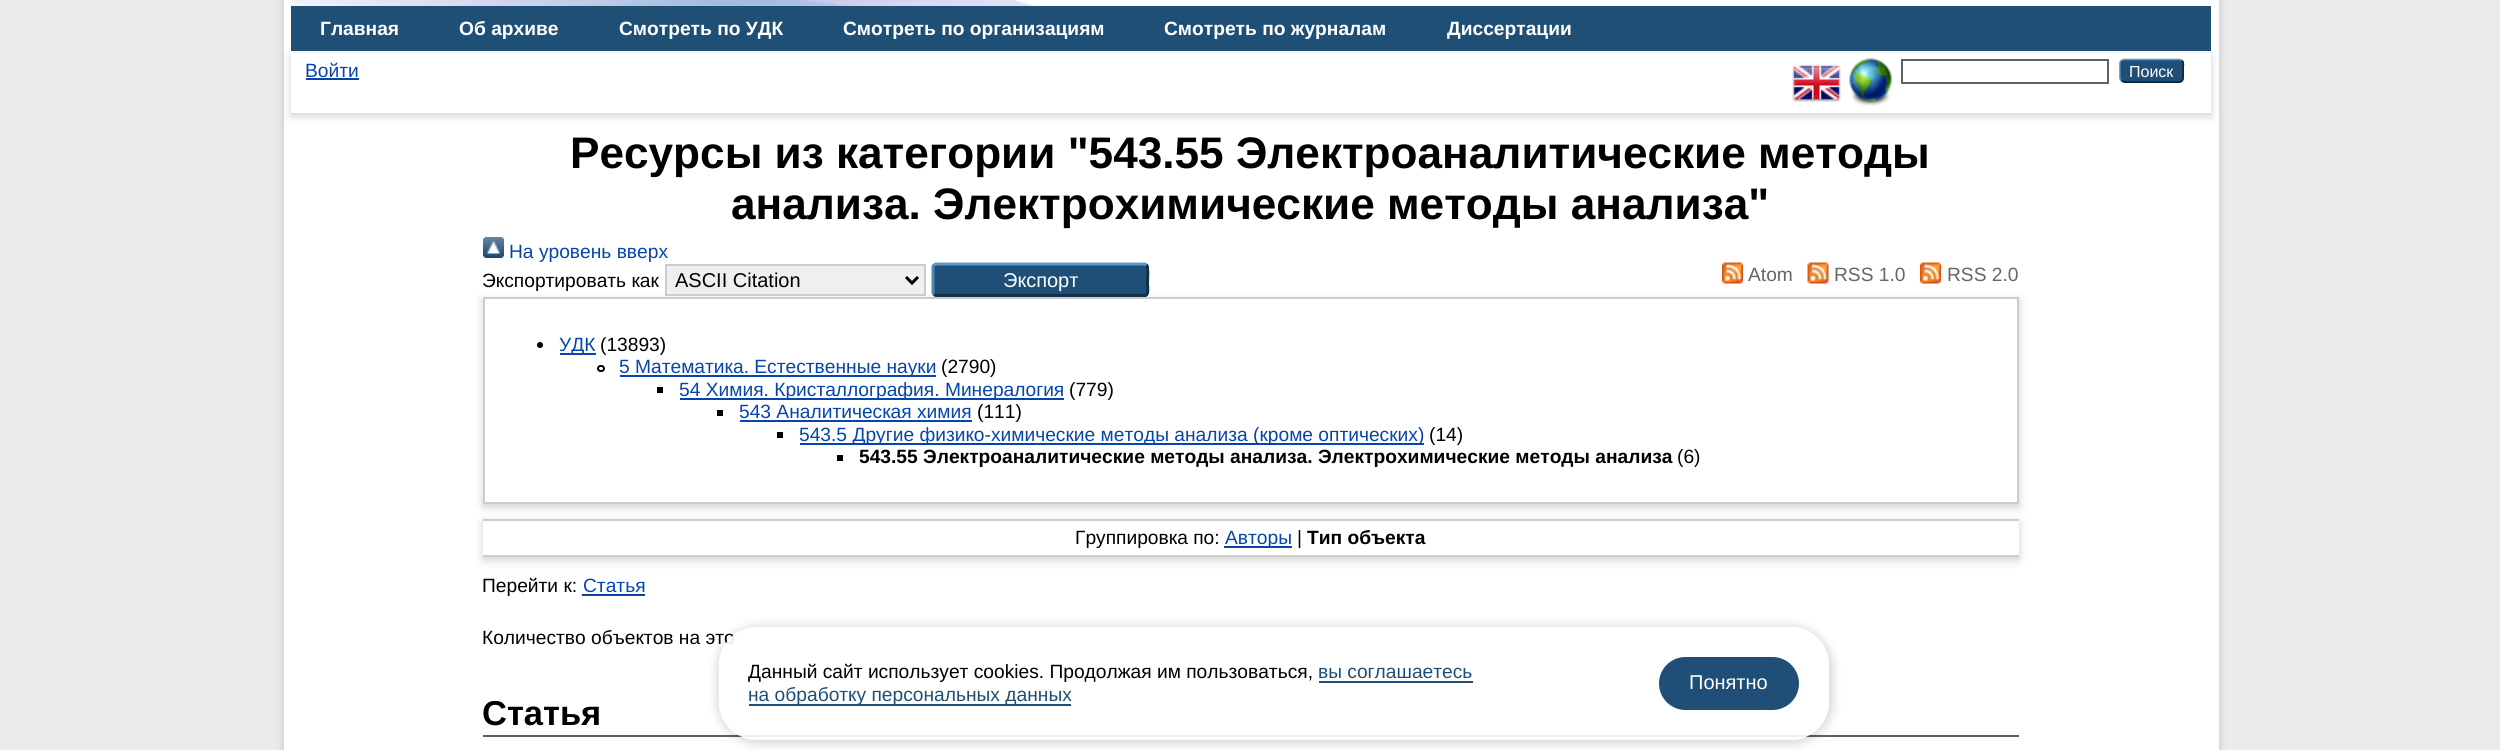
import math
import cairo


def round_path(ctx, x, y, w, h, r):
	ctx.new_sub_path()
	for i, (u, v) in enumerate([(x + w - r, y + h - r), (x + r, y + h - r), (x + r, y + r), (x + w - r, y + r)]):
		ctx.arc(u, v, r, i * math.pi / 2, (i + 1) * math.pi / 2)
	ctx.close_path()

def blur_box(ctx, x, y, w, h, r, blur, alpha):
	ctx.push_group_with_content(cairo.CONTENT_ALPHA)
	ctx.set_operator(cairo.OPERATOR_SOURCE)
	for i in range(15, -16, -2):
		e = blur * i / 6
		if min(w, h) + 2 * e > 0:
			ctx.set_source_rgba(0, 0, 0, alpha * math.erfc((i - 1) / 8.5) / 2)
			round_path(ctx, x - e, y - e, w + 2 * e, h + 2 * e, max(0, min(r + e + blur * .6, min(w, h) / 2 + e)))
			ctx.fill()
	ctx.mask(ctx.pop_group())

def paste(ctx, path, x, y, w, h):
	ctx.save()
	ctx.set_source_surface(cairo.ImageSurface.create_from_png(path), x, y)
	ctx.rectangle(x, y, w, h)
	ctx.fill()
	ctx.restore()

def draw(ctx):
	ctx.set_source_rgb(0.918, 0.918, 0.918)
	ctx.paint()
	ctx.set_source_rgb(0.392, 0.392, 0.392)
	blur_box(ctx, 284, -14, 1935, 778, 0, 4.5, 0.3)
	ctx.set_source_rgb(1, 1, 1)
	ctx.rectangle(284, 0, 1935, 750)
	ctx.fill()
	paste(ctx, 'media/1.png', 291, 0, 743, 6)
	ctx.set_source_rgb(0.125, 0.31, 0.463)
	ctx.rectangle(291, 6, 1920, 45)
	ctx.fill()
	ctx.select_font_face('Liberation Sans', cairo.FONT_SLANT_NORMAL, cairo.FONT_WEIGHT_BOLD)
	ctx.set_font_size(19.2)
	ctx.set_source_rgb(1, 1, 1)
	for x, y, s in [
		(320, 35, 'Главная'),
		(459, 35, 'Об архиве'),
		(619, 35, 'Смотреть по УДК'),
		(843, 35, 'Смотреть по организациям'),
		(1164, 35, 'Смотреть по журналам'),
		(1447, 35, 'Диссертации'),
	]:
		ctx.move_to(x, y)
		ctx.show_text(s)
	ctx.set_source_rgb(0.392, 0.392, 0.392)
	blur_box(ctx, 291, 56, 1920, 60, 0, 4.5, 0.3)
	ctx.set_source_rgb(1, 1, 1)
	ctx.rectangle(291, 53, 1920, 60)
	ctx.fill()
	ctx.select_font_face('Liberation Sans')
	ctx.set_source_rgb(0.024, 0.271, 0.678)
	ctx.move_to(305, 77)
	ctx.show_text('Войти')
	ctx.rectangle(306, 78, 53, 2)
	ctx.fill()
	paste(ctx, 'media/2.png', 1792, 64, 49, 38)
	paste(ctx, 'media/3.png', 1849, 58, 43, 48)
	ctx.rectangle(1902, 60, 206, 23)
	ctx.set_source_rgb(0.376, 0.376, 0.376)
	ctx.stroke()
	ctx.set_source_rgb(0.122, 0.31, 0.463)
	round_path(ctx, 2120, 59, 64, 24, 5)
	ctx.fill()
	ctx.new_path()
	ctx.move_to(2121.5, 60.5)
	ctx.line_to(2123.5, 59.5)
	ctx.line_to(2180, 59.5)
	ctx.line_to(2182, 60.5)
	ctx.set_source_rgb(0.357, 0.592, 0.78)
	ctx.set_line_width(1.5)
	ctx.stroke()
	ctx.new_path()
	ctx.move_to(2182, 60.5)
	ctx.curve_to(2184.5, 62.5, 2183, 67.5, 2183, 70.5)
	ctx.curve_to(2183, 83.5, 2184, 82, 2170, 82)
	ctx.line_to(2133, 82)
	ctx.curve_to(2132.5, 82, 2124, 83, 2121.5, 80.5)
	ctx.set_source_rgb(0.051, 0.129, 0.192)
	ctx.stroke()
	ctx.new_path()
	ctx.move_to(2121.5, 80.5)
	ctx.curve_to(2120.5, 80, 2120, 79, 2120, 78)
	ctx.line_to(2120, 63)
	ctx.curve_to(2120, 62, 2120.5, 61, 2121.5, 60.5)
	ctx.set_source_rgb(0.322, 0.529, 0.702)
	ctx.stroke()
	ctx.set_font_size(16)
	ctx.set_source_rgb(1, 1, 1)
	ctx.move_to(2129, 77)
	ctx.show_text('Поиск')
	ctx.select_font_face('Liberation Sans', cairo.FONT_SLANT_NORMAL, cairo.FONT_WEIGHT_BOLD)
	ctx.set_font_size(44.15)
	ctx.set_source_rgb(0, 0, 0)
	ctx.move_to(570, 168)
	ctx.show_text('Ресурсы из категории "543.55 Электроаналитические методы')
	ctx.move_to(731, 219)
	ctx.show_text('анализа. Электрохимические методы анализа"')
	paste(ctx, 'media/4.png', 483, 237, 21, 21)
	ctx.select_font_face('Liberation Sans')
	ctx.set_font_size(19.2)
	ctx.set_source_rgb(0.024, 0.271, 0.678)
	ctx.move_to(509, 258)
	ctx.show_text('На уровень вверх')
	ctx.save()
	ctx.set_fill_rule(cairo.FILL_RULE_EVEN_ODD)
	ctx.new_path()
	ctx.move_to(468, 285)
	ctx.line_to(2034, 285)
	ctx.line_to(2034, 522)
	ctx.line_to(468, 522)
	ctx.close_path()
	ctx.move_to(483, 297)
	ctx.line_to(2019, 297)
	ctx.line_to(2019, 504)
	ctx.line_to(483, 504)
	ctx.close_path()
	ctx.clip()
	ctx.set_source_rgb(0.392, 0.392, 0.392)
	blur_box(ctx, 483, 300, 1536, 207, 0, 4.5, 0.3)
	ctx.restore()
	ctx.set_source_rgb(0, 0, 0)
	ctx.move_to(482, 287)
	ctx.show_text('Экспортировать как')
	ctx.set_source_rgb(0.937, 0.937, 0.937)
	ctx.rectangle(666, 265, 259, 30)
	ctx.fill_preserve()
	ctx.set_source_rgb(0.8, 0.8, 0.8)
	ctx.set_line_width(2)
	ctx.stroke()
	ctx.new_path()
	ctx.move_to(906, 277)
	ctx.line_to(912, 283)
	ctx.line_to(918, 277)
	ctx.set_source_rgb(0, 0, 0)
	ctx.set_line_width(3)
	ctx.stroke()
	ctx.set_font_size(20)
	ctx.move_to(675, 287)
	ctx.show_text('ASCII Citation')
	ctx.set_source_rgb(0.122, 0.31, 0.463)
	round_path(ctx, 932, 263, 217, 34, 5)
	ctx.fill()
	ctx.new_path()
	ctx.move_to(934, 265)
	ctx.line_to(936, 264)
	ctx.line_to(1144.5, 264)
	ctx.line_to(1146.5, 265)
	ctx.set_source_rgb(0.357, 0.592, 0.78)
	ctx.stroke()
	ctx.new_path()
	ctx.move_to(1146.5, 265)
	ctx.curve_to(1148.5, 267, 1147.5, 280.5, 1147.5, 284)
	ctx.curve_to(1147.5, 286, 1149, 294, 1145.5, 295.5)
	ctx.line_to(936, 295.5)
	ctx.line_to(934, 294.5)
	ctx.set_source_rgb(0.075, 0.196, 0.29)
	ctx.stroke()
	ctx.new_path()
	ctx.move_to(934, 294.5)
	ctx.curve_to(933.5, 294, 933, 293.5, 933, 292.5)
	ctx.line_to(933, 267)
	ctx.curve_to(933, 266, 933.5, 265.5, 934, 265)
	ctx.set_source_rgb(0.322, 0.529, 0.702)
	ctx.stroke()
	ctx.set_source_rgb(1, 1, 1)
	ctx.move_to(1003, 287)
	ctx.show_text('Экспорт')
	paste(ctx, 'media/5.png', 1722, 262, 21, 22)
	ctx.set_font_size(19.2)
	ctx.set_source_rgb(0.4, 0.4, 0.4)
	ctx.move_to(1748, 281)
	ctx.show_text('Atom')
	paste(ctx, 'media/6.png', 1807, 262, 22, 22)
	ctx.move_to(1834, 281)
	ctx.show_text('RSS 1.0')
	paste(ctx, 'media/7.png', 1920, 262, 21, 22)
	ctx.move_to(1947, 281)
	ctx.show_text('RSS 2.0')
	ctx.rectangle(484, 298, 1534, 205)
	ctx.set_source_rgb(0.8, 0.8, 0.8)
	ctx.set_line_width(2)
	ctx.stroke()
	ctx.set_source_rgb(0, 0, 0)
	ctx.arc(540, 345, 3, 0, 2 * math.pi)
	ctx.fill()
	ctx.set_source_rgb(0.024, 0.271, 0.678)
	ctx.rectangle(560, 353, 36, 2)
	ctx.fill()
	ctx.move_to(559, 351)
	ctx.show_text('УДК')
	ctx.set_source_rgb(0, 0, 0)
	ctx.move_to(600, 351)
	ctx.show_text('(13893)')
	round_path(ctx, 598, 366, 6, 5, 2.5)
	ctx.stroke()
	ctx.set_source_rgb(0.024, 0.271, 0.678)
	ctx.rectangle(620, 375, 316, 2)
	ctx.fill()
	ctx.move_to(619, 373)
	ctx.show_text('5 Математика. Естественные науки')
	ctx.set_source_rgb(0, 0, 0)
	ctx.move_to(941, 373)
	ctx.show_text('(2790)')
	ctx.rectangle(657, 387, 6, 6)
	ctx.fill()
	ctx.set_source_rgb(0.024, 0.271, 0.678)
	ctx.rectangle(680, 398, 384, 2)
	ctx.fill()
	ctx.move_to(679, 396)
	ctx.show_text('54 Химия. Кристаллография. Минералогия')
	ctx.set_source_rgb(0, 0, 0)
	ctx.move_to(1069, 396)
	ctx.show_text('(779)')
	ctx.rectangle(717, 410, 6, 6)
	ctx.fill()
	ctx.set_source_rgb(0.024, 0.271, 0.678)
	ctx.move_to(739, 418)
	ctx.show_text('543 Аналитическая химия')
	ctx.rectangle(740, 420, 232, 2)
	ctx.fill()
	ctx.set_source_rgb(0, 0, 0)
	ctx.move_to(977, 418)
	ctx.show_text('(111)')
	ctx.rectangle(777, 432, 6, 6)
	ctx.fill()
	ctx.set_source_rgb(0.024, 0.271, 0.678)
	ctx.rectangle(800, 443, 624, 2)
	ctx.fill()
	ctx.move_to(799, 441)
	ctx.show_text('543.5 Другие физико-химические методы анализа (кроме оптических)')
	ctx.set_source_rgb(0, 0, 0)
	ctx.move_to(1429, 441)
	ctx.show_text('(14)')
	ctx.rectangle(837, 455, 6, 6)
	ctx.fill()
	ctx.select_font_face('Liberation Sans', cairo.FONT_SLANT_NORMAL, cairo.FONT_WEIGHT_BOLD)
	ctx.move_to(859, 463)
	ctx.show_text('543.55 Электроаналитические методы анализа. Электрохимические методы анализа')
	ctx.select_font_face('Liberation Sans')
	ctx.move_to(1677, 463)
	ctx.show_text('(6)')
	ctx.set_source_rgb(0.392, 0.392, 0.392)
	blur_box(ctx, 483, 522, 1536, 38, 0, 4.5, 0.3)
	ctx.set_source_rgb(1, 1, 1)
	ctx.rectangle(483, 521, 1536, 34)
	ctx.fill()
	ctx.set_source_rgb(0.8, 0.8, 0.8)
	ctx.rectangle(483, 519, 1536, 2)
	ctx.rectangle(483, 555, 1536, 2)
	ctx.fill()
	ctx.set_source_rgb(0, 0, 0)
	ctx.move_to(1075, 544)
	ctx.show_text('Группировка по:')
	ctx.set_source_rgb(0.024, 0.271, 0.678)
	ctx.rectangle(1224, 546, 68, 2)
	ctx.fill()
	ctx.move_to(1225, 544)
	ctx.show_text('Авторы')
	ctx.set_source_rgb(0, 0, 0)
	ctx.move_to(1297, 544)
	ctx.show_text('|')
	ctx.select_font_face('Liberation Sans', cairo.FONT_SLANT_NORMAL, cairo.FONT_WEIGHT_BOLD)
	ctx.move_to(1307, 544)
	ctx.show_text('Тип объекта')
	ctx.select_font_face('Liberation Sans')
	ctx.move_to(482, 592)
	ctx.show_text('Перейти к:')
	ctx.set_source_rgb(0.024, 0.271, 0.678)
	ctx.move_to(583, 592)
	ctx.show_text('Статья')
	ctx.rectangle(582, 594, 63, 2)
	ctx.fill()
	ctx.set_source_rgb(0, 0, 0)
	ctx.move_to(482, 644)
	ctx.show_text('Количество объектов на это')
	ctx.set_source_rgb(0.376, 0.376, 0.376)
	ctx.rectangle(483, 735, 1536, 2)
	ctx.fill()
	ctx.select_font_face('Liberation Sans', cairo.FONT_SLANT_NORMAL, cairo.FONT_WEIGHT_BOLD)
	ctx.set_font_size(34.5)
	ctx.set_source_rgb(0, 0, 0)
	ctx.move_to(482, 725)
	ctx.show_text('Статья')
	ctx.save()
	ctx.set_fill_rule(cairo.FILL_RULE_EVEN_ODD)
	ctx.new_path()
	ctx.move_to(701, 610)
	ctx.line_to(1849, 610)
	ctx.line_to(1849, 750)
	ctx.line_to(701, 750)
	ctx.close_path()
	ctx.move_to(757, 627)
	ctx.line_to(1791, 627)
	ctx.curve_to(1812, 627, 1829, 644, 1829, 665)
	ctx.line_to(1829, 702)
	ctx.curve_to(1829, 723, 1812, 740, 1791, 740)
	ctx.line_to(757, 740)
	ctx.curve_to(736, 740, 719, 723, 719, 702)
	ctx.line_to(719, 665)
	ctx.curve_to(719, 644, 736, 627, 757, 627)
	ctx.close_path()
	ctx.clip()
	ctx.set_source_rgb(0, 0, 0)
	blur_box(ctx, 717, 626, 1116, 118, 41, 5, 0.16)
	ctx.restore()
	ctx.set_source_rgba(1, 1, 1, 0.9)
	round_path(ctx, 719, 627, 1110, 113, 38)
	ctx.fill()
	ctx.select_font_face('Liberation Sans')
	ctx.set_font_size(19.2)
	ctx.set_source_rgb(0, 0, 0)
	ctx.move_to(748, 678)
	ctx.show_text('Данный сайт использует cookies. Продолжая им пользоваться,')
	ctx.set_source_rgb(0.122, 0.31, 0.463)
	ctx.move_to(1318, 678)
	ctx.show_text('вы соглашаетесь')
	ctx.rectangle(1319, 681, 154, 2)
	ctx.fill()
	ctx.rectangle(749, 704, 322, 2)
	ctx.fill()
	ctx.move_to(748, 701)
	ctx.show_text('на обработку персональных данных')
	round_path(ctx, 1659, 657, 140, 53, 26.5)
	ctx.fill()
	ctx.set_font_size(20)
	ctx.set_source_rgb(1, 1, 1)
	ctx.move_to(1689, 689)
	ctx.show_text('Понятно')


surface = cairo.ImageSurface(cairo.FORMAT_RGB24, 2500, 750)
ctx = cairo.Context(surface)
options = cairo.FontOptions()
options.set_hint_metrics(cairo.HINT_METRICS_OFF)
options.set_hint_style(cairo.HINT_STYLE_NONE)
ctx.set_font_options(options)
ctx.set_miter_limit(4)
draw(ctx)
surface.write_to_png('image.png')
